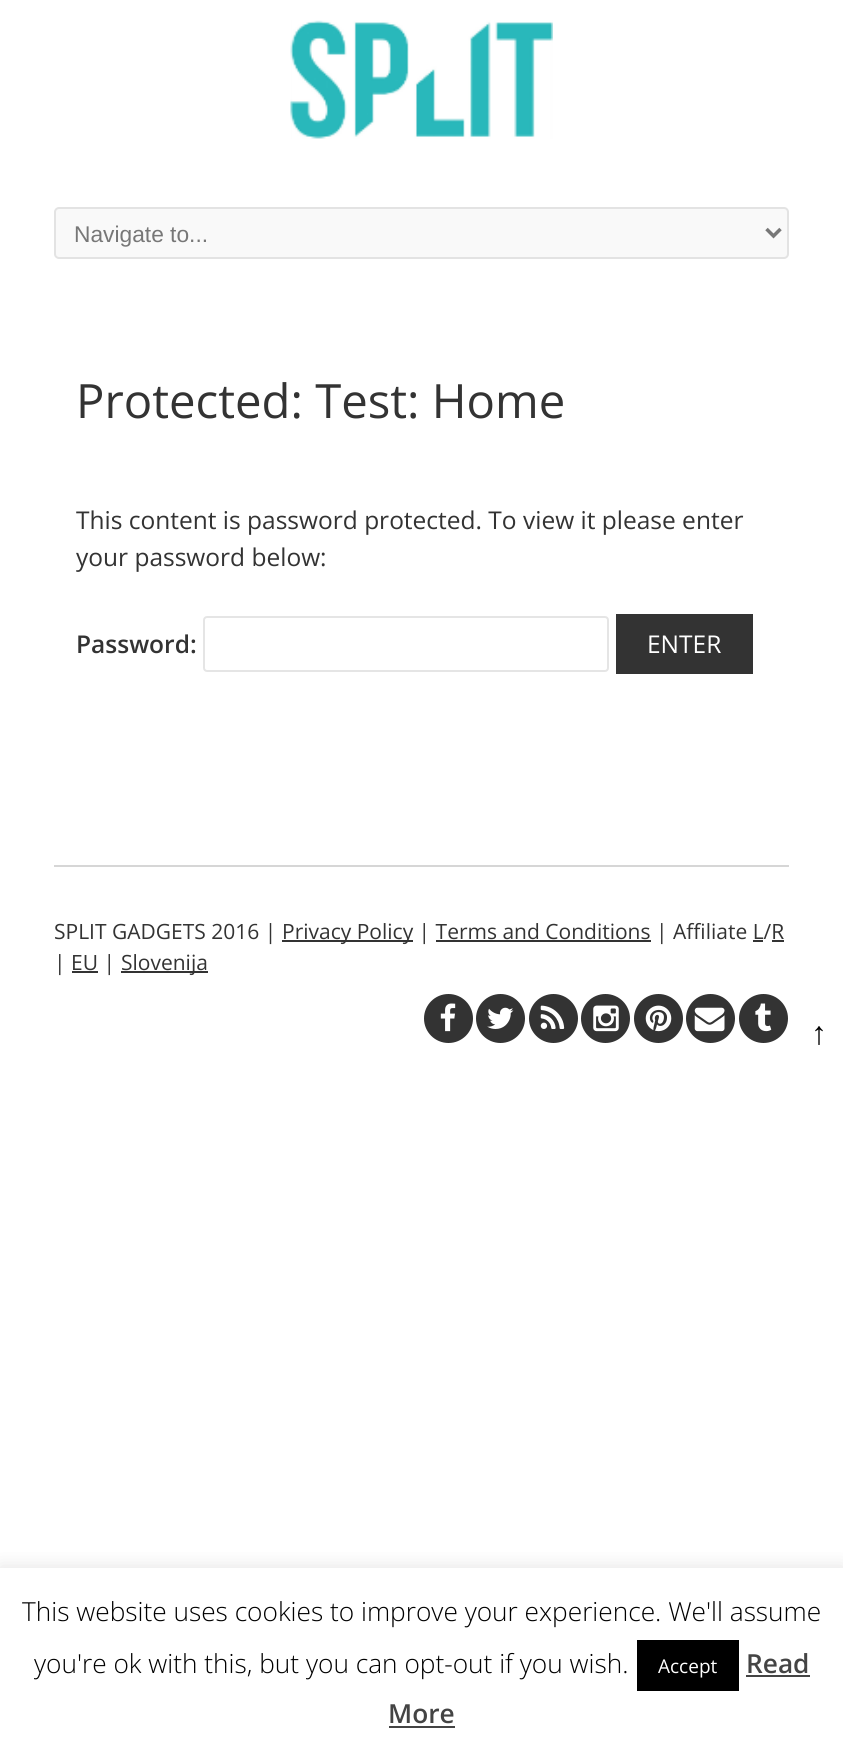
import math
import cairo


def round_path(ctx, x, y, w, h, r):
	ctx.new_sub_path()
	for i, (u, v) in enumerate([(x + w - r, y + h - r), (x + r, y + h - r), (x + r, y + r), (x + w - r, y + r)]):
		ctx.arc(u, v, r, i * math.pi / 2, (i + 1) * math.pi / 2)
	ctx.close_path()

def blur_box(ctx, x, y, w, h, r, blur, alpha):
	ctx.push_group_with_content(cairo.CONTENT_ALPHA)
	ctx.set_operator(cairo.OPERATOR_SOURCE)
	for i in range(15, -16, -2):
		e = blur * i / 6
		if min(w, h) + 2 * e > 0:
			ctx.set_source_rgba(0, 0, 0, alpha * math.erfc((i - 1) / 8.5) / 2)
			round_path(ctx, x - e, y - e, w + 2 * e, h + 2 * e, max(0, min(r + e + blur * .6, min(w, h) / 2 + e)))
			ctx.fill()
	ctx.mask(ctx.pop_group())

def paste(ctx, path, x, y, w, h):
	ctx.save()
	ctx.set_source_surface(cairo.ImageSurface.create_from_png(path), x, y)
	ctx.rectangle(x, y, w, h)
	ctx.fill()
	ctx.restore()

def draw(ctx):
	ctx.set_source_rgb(1, 1, 1)
	ctx.paint()
	paste(ctx, 'media/1.png', 290, 20, 263, 119)
	ctx.set_source_rgb(0.976, 0.976, 0.976)
	round_path(ctx, 55, 208, 733, 50, 4)
	ctx.fill_preserve()
	ctx.set_source_rgb(0.89, 0.89, 0.89)
	ctx.stroke()
	ctx.new_path()
	ctx.move_to(766.5, 229)
	ctx.line_to(773.5, 236)
	ctx.line_to(780.5, 229)
	ctx.set_source_rgb(0.467, 0.467, 0.467)
	ctx.set_line_width(3.5)
	ctx.stroke()
	ctx.select_font_face('Liberation Sans')
	ctx.set_font_size(22.75)
	ctx.move_to(74, 242)
	ctx.show_text('Navigate to...')
	ctx.select_font_face('Open Sans')
	ctx.set_font_size(47.25)
	ctx.set_source_rgb(0.2, 0.2, 0.2)
	ctx.move_to(76, 418)
	ctx.show_text('Protected: Test: Home')
	ctx.set_font_size(24.5)
	ctx.move_to(76, 529)
	ctx.show_text('This content is password protected. To view it please enter')
	ctx.move_to(76, 566)
	ctx.show_text('your password below:')
	ctx.select_font_face('Open Sans SemiBold')
	ctx.move_to(76, 653)
	ctx.show_text('Password:')
	round_path(ctx, 204, 617, 404, 54, 3)
	ctx.set_source_rgb(0.898, 0.898, 0.898)
	ctx.set_line_width(2)
	ctx.stroke()
	ctx.set_source_rgb(0.2, 0.2, 0.2)
	ctx.rectangle(616, 614, 137, 60)
	ctx.fill()
	ctx.select_font_face('Open Sans')
	ctx.set_source_rgb(1, 1, 1)
	ctx.move_to(647, 653)
	ctx.show_text('ENTER')
	ctx.set_source_rgb(0.839, 0.839, 0.839)
	ctx.rectangle(54, 865, 735, 2)
	ctx.fill()
	ctx.set_font_size(21)
	ctx.set_source_rgb(0.2, 0.2, 0.2)
	ctx.move_to(54, 939)
	ctx.show_text('SPLIT GADGETS 2016 |')
	ctx.rectangle(282, 940, 131, 2)
	ctx.fill()
	ctx.move_to(282, 939)
	ctx.show_text('Privacy Policy | Terms and Conditions | Affiliate L/R')
	ctx.rectangle(436, 940, 215, 2)
	ctx.rectangle(753, 940, 10, 2)
	ctx.rectangle(772, 940, 12, 2)
	ctx.fill()
	ctx.move_to(54, 970)
	ctx.show_text('| EU |')
	ctx.rectangle(72, 971, 26, 2)
	ctx.fill()
	ctx.rectangle(121, 971, 87, 2)
	ctx.fill()
	ctx.move_to(121, 970)
	ctx.show_text('Slovenija')
	ctx.new_path()
	ctx.arc(448.5, 1018.5, 24.5, 0, 2 * math.pi)
	ctx.fill()
	paste(ctx, 'media/2.png', 440, 1003, 16, 29)
	ctx.arc(500.5, 1018.5, 24.5, 0, 2 * math.pi)
	ctx.fill()
	paste(ctx, 'media/3.png', 487, 1007, 27, 22)
	ctx.arc(553.5, 1018.5, 24.5, 0, 2 * math.pi)
	ctx.fill()
	paste(ctx, 'media/4.png', 540, 1005, 25, 24)
	ctx.arc(605.5, 1018.5, 24.5, 0, 2 * math.pi)
	ctx.fill()
	paste(ctx, 'media/5.png', 593, 1005, 26, 27)
	ctx.arc(658.5, 1018.5, 24.5, 0, 2 * math.pi)
	ctx.fill()
	paste(ctx, 'media/6.png', 645, 1005, 27, 27)
	ctx.arc(710.5, 1018.5, 24.5, 0, 2 * math.pi)
	ctx.fill()
	paste(ctx, 'media/7.png', 694, 1007, 31, 25)
	ctx.arc(763.5, 1018.5, 24.5, 0, 2 * math.pi)
	ctx.fill()
	paste(ctx, 'media/8.png', 755, 1003, 17, 29)
	ctx.select_font_face('Liberation Sans')
	ctx.set_font_size(32)
	ctx.set_source_rgb(0, 0, 0)
	ctx.move_to(811, 1044)
	ctx.show_text('↑')
	ctx.save()
	ctx.rectangle(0, 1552, 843, 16)
	ctx.clip()
	ctx.set_source_rgb(0.675, 0.671, 0.671)
	blur_box(ctx, 0, 1566, 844, 186, 0, 9, 0.3)
	ctx.restore()
	ctx.select_font_face('Open Sans Light')
	ctx.set_font_size(26.25)
	ctx.move_to(22, 1621)
	ctx.show_text('This website uses cookies to improve your experience. We\'ll assume')
	ctx.move_to(34, 1673)
	ctx.show_text('you\'re ok with this, but you can opt-out if you wish.')
	ctx.rectangle(637, 1640, 102, 51)
	ctx.fill()
	ctx.select_font_face('Open Sans')
	ctx.set_font_size(19)
	ctx.set_source_rgb(1, 1, 1)
	ctx.move_to(658, 1673)
	ctx.show_text('Accept')
	ctx.select_font_face('Open Sans SemiBold')
	ctx.set_font_size(26.25)
	ctx.set_source_rgb(0.267, 0.267, 0.267)
	ctx.move_to(746, 1673)
	ctx.show_text('Read')
	ctx.rectangle(746, 1675, 64, 2)
	ctx.fill()
	ctx.move_to(388, 1723)
	ctx.show_text('More')
	ctx.rectangle(389, 1726, 66, 2)
	ctx.fill()


surface = cairo.ImageSurface(cairo.FORMAT_RGB24, 843, 1753)
ctx = cairo.Context(surface)
options = cairo.FontOptions()
options.set_hint_metrics(cairo.HINT_METRICS_OFF)
options.set_hint_style(cairo.HINT_STYLE_NONE)
ctx.set_font_options(options)
ctx.set_miter_limit(4)
draw(ctx)
surface.write_to_png('image.png')
